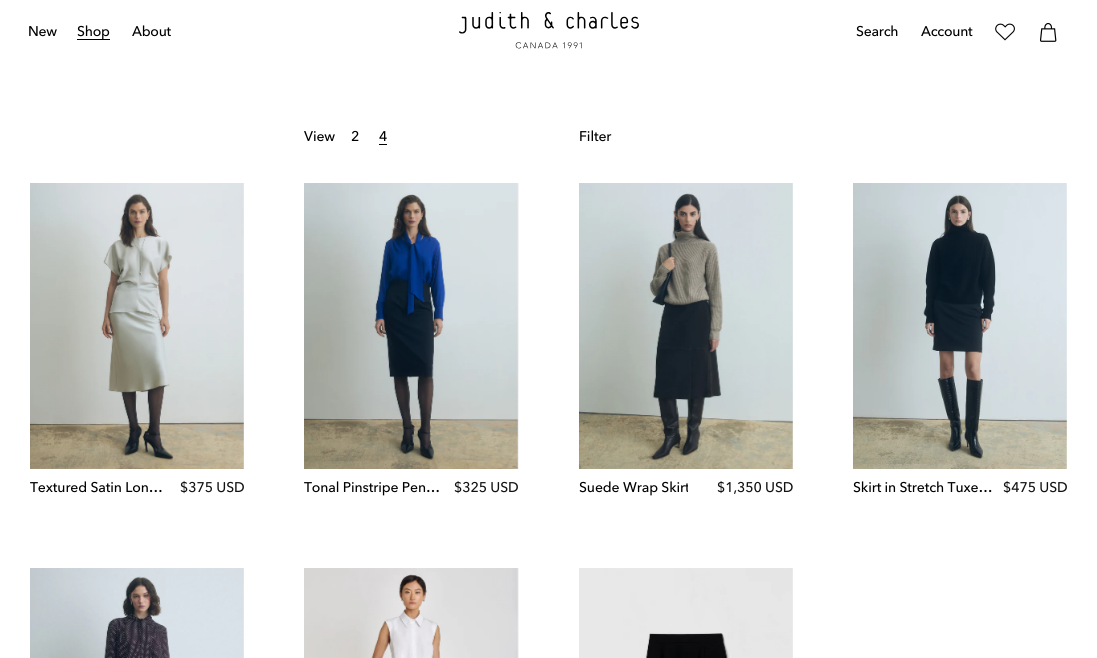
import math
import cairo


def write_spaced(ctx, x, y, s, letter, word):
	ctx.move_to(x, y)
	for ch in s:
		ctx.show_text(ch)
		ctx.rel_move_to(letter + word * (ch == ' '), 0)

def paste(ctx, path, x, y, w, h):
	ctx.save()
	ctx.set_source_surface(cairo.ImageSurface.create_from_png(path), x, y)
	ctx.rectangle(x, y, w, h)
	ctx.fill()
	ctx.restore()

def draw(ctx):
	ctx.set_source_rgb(1, 1, 1)
	ctx.paint()
	ctx.select_font_face('Avenir Next Medium')
	ctx.set_font_size(14)
	ctx.set_source_rgb(0, 0, 0)
	write_spaced(ctx, 28, 36, 'New', -0.25, 0)
	ctx.rectangle(77, 39, 33, 1)
	ctx.fill()
	write_spaced(ctx, 77, 36, 'Shop', -0.25, 0)
	write_spaced(ctx, 132, 36, 'About', -0.25, 0)
	paste(ctx, 'media/1.png', 459, 12, 180, 37)
	write_spaced(ctx, 856, 36, 'Search', -0.25, 0)
	write_spaced(ctx, 921, 36, 'Account', -0.25, 0)
	paste(ctx, 'media/2.png', 995, 23, 20, 18)
	paste(ctx, 'media/3.png', 1040, 22, 17, 20)
	for x, y, s in [
		(304, 141, 'View'),
		(351, 141, '2'),
		(379, 141, '4'),
	]:
		write_spaced(ctx, x, y, s, -0.1, 0)
	ctx.rectangle(379, 144, 8, 1)
	ctx.fill()
	write_spaced(ctx, 579, 141, 'Filter', -0.1, 0)
	paste(ctx, 'media/4.png', 30, 183, 214, 286)
	write_spaced(ctx, 30, 492, 'Textured Satin Lon…', -0.1, 0)
	ctx.set_source_rgb(0.071, 0.071, 0.071)
	write_spaced(ctx, 180, 492, '$375 USD', -0.1, 0)
	ctx.set_source_rgb(0.953, 0.953, 0.953)
	ctx.rectangle(517, 183, 2, 286)
	ctx.fill()
	paste(ctx, 'media/5.png', 304, 183, 214, 286)
	ctx.set_source_rgb(0, 0, 0)
	write_spaced(ctx, 304, 492, 'Tonal Pinstripe Pen…', -0.1, 0)
	ctx.set_source_rgb(0.071, 0.071, 0.071)
	write_spaced(ctx, 454, 492, '$325 USD', -0.1, 0)
	paste(ctx, 'media/6.png', 579, 183, 214, 286)
	ctx.save()
	ctx.rectangle(579, 479, 109, 19)
	ctx.clip()
	ctx.set_source_rgb(0, 0, 0)
	write_spaced(ctx, 579, 492, 'Suede Wrap Skirt', -0.1, 0)
	ctx.restore()
	write_spaced(ctx, 717, 492, '$1,350 USD', -0.1, 0)
	paste(ctx, 'media/7.png', 853, 183, 214, 286)
	ctx.set_source_rgb(0, 0, 0)
	write_spaced(ctx, 853, 492, 'Skirt in Stretch Tuxe…', -0.1, 0)
	ctx.set_source_rgb(0.071, 0.071, 0.071)
	write_spaced(ctx, 1003, 492, '$475 USD', -0.1, 0)
	paste(ctx, 'media/8.png', 30, 568, 214, 90)
	ctx.set_source_rgb(0.953, 0.953, 0.953)
	ctx.rectangle(517, 568, 2, 90)
	ctx.fill()
	paste(ctx, 'media/9.png', 304, 568, 214, 90)
	paste(ctx, 'media/10.png', 579, 568, 214, 90)


surface = cairo.ImageSurface(cairo.FORMAT_RGB24, 1097, 658)
ctx = cairo.Context(surface)
options = cairo.FontOptions()
options.set_hint_metrics(cairo.HINT_METRICS_OFF)
options.set_hint_style(cairo.HINT_STYLE_NONE)
ctx.set_font_options(options)
ctx.set_miter_limit(4)
draw(ctx)
surface.write_to_png('image.png')
